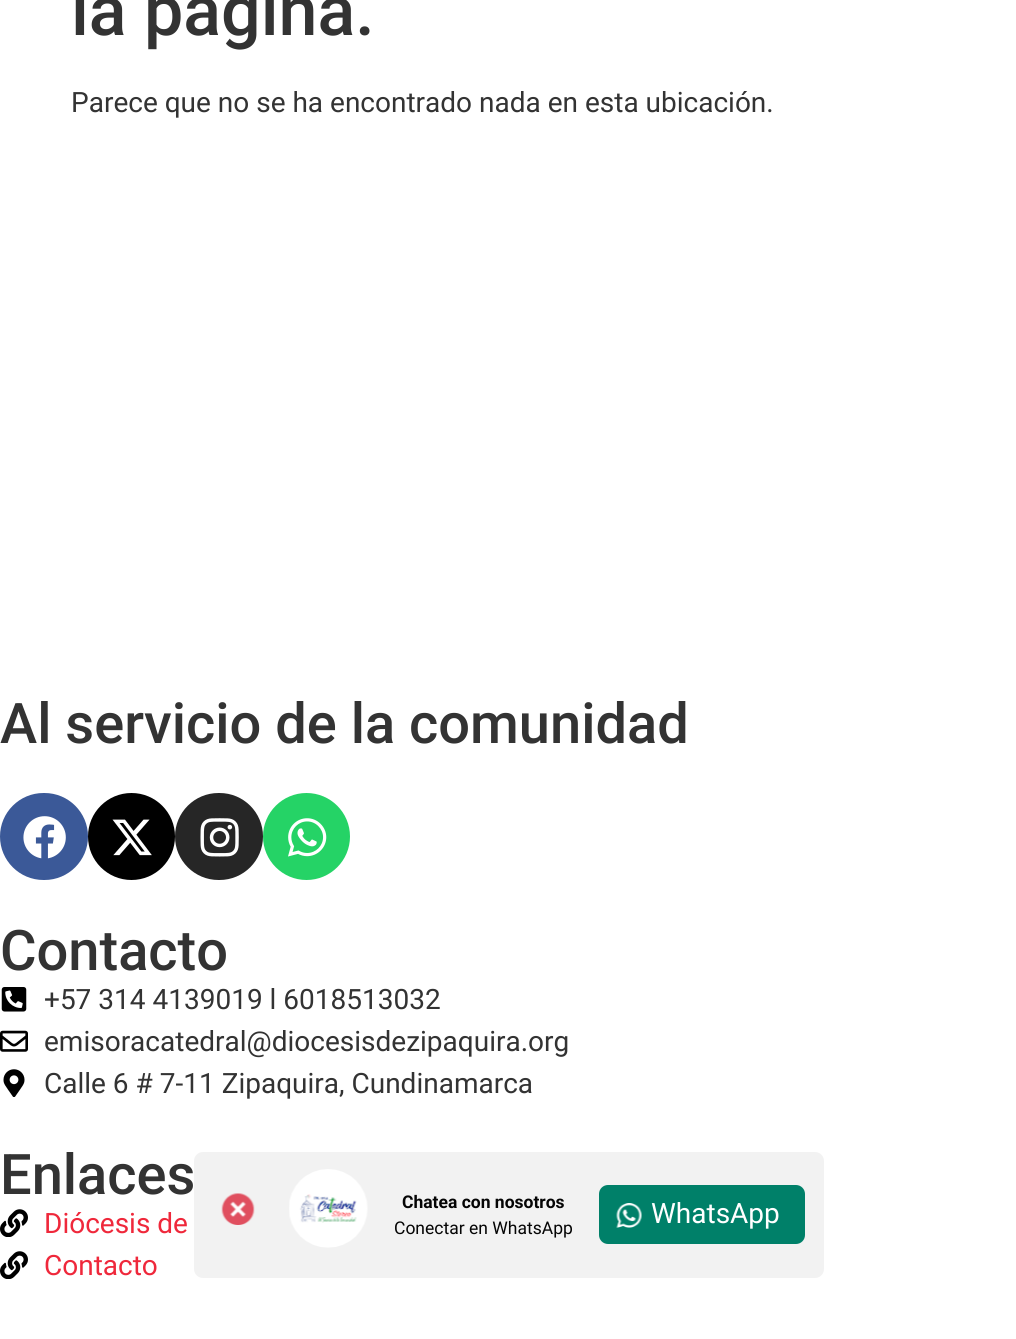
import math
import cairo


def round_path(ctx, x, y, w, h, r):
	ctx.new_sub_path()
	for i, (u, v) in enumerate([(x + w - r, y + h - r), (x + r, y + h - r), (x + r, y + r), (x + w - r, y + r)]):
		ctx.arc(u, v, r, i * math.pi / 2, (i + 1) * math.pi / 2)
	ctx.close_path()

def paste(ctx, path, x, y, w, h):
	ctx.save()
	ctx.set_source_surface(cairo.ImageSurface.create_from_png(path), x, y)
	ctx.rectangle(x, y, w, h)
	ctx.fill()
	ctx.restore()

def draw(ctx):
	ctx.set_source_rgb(1, 1, 1)
	ctx.paint()
	ctx.select_font_face('Roboto Medium')
	ctx.set_font_size(70)
	ctx.set_source_rgb(0.2, 0.2, 0.2)
	ctx.move_to(71, 35)
	ctx.show_text('la página.')
	ctx.select_font_face('Roboto')
	ctx.set_font_size(28)
	ctx.move_to(71, 112)
	ctx.show_text('Parece que no se ha encontrado nada en esta ubicación.')
	ctx.select_font_face('Roboto Medium')
	ctx.set_font_size(56)
	ctx.move_to(0, 743)
	ctx.show_text('Al servicio de la comunidad')
	ctx.set_source_rgb(0.231, 0.349, 0.596)
	round_path(ctx, 0, 793, 88, 87, 43.5)
	ctx.fill()
	paste(ctx, 'media/1.png', 23, 816, 43, 43)
	ctx.set_source_rgb(0, 0, 0)
	ctx.arc(131.5, 836.5, 43.5, 0, 2 * math.pi)
	ctx.fill()
	paste(ctx, 'media/2.png', 112, 819, 40, 37)
	ctx.set_source_rgb(0.149, 0.149, 0.149)
	round_path(ctx, 175, 793, 88, 87, 43.5)
	ctx.fill()
	paste(ctx, 'media/3.png', 200, 818, 39, 39)
	ctx.set_source_rgb(0.145, 0.827, 0.4)
	ctx.arc(306.5, 836.5, 43.5, 0, 2 * math.pi)
	ctx.fill()
	paste(ctx, 'media/4.png', 288, 818, 39, 39)
	ctx.set_source_rgb(0.2, 0.2, 0.2)
	ctx.move_to(0, 970)
	ctx.show_text('Contacto')
	paste(ctx, 'media/5.png', 1, 987, 26, 25)
	ctx.select_font_face('Roboto')
	ctx.set_font_size(28)
	ctx.move_to(44, 1009)
	ctx.show_text('+57 314 4139019 l 6018513032')
	paste(ctx, 'media/6.png', 0, 1030, 28, 22)
	ctx.move_to(44, 1051)
	ctx.show_text('emisoracatedral@diocesisdezipaquira.org')
	paste(ctx, 'media/7.png', 3, 1069, 22, 28)
	ctx.move_to(44, 1093)
	ctx.show_text('Calle 6 # 7-11 Zipaquira, Cundinamarca')
	ctx.select_font_face('Roboto Medium')
	ctx.set_font_size(56)
	ctx.move_to(0, 1194)
	ctx.show_text('Enlaces')
	paste(ctx, 'media/8.png', 0, 1209, 28, 28)
	ctx.select_font_face('Roboto')
	ctx.set_font_size(28)
	ctx.set_source_rgb(0.937, 0.157, 0.231)
	ctx.move_to(44, 1233)
	ctx.show_text('Diócesis de')
	paste(ctx, 'media/8.png', 0, 1251, 28, 28)
	ctx.move_to(44, 1275)
	ctx.show_text('Contacto')
	ctx.set_source_rgb(0.949, 0.949, 0.949)
	round_path(ctx, 194, 1152, 630, 126, 9)
	ctx.fill()
	paste(ctx, 'media/9.png', 221, 1193, 34, 32)
	paste(ctx, 'media/10.png', 289, 1169, 79, 79)
	ctx.select_font_face('Roboto', cairo.FONT_SLANT_NORMAL, cairo.FONT_WEIGHT_BOLD)
	ctx.set_font_size(17.5)
	ctx.set_source_rgb(0.02, 0.02, 0.02)
	ctx.move_to(402, 1208)
	ctx.show_text('Chatea con nosotros')
	ctx.select_font_face('Roboto')
	ctx.move_to(394, 1234)
	ctx.show_text('Conectar en WhatsApp')
	ctx.set_source_rgb(0, 0.502, 0.412)
	round_path(ctx, 599, 1185, 206, 59, 9)
	ctx.fill()
	paste(ctx, 'media/11.png', 616, 1203, 26, 25)
	ctx.set_font_size(28)
	ctx.set_source_rgb(1, 1, 1)
	ctx.move_to(651, 1223)
	ctx.show_text('WhatsApp')


surface = cairo.ImageSurface(cairo.FORMAT_RGB24, 1016, 1339)
ctx = cairo.Context(surface)
options = cairo.FontOptions()
options.set_hint_metrics(cairo.HINT_METRICS_OFF)
options.set_hint_style(cairo.HINT_STYLE_NONE)
ctx.set_font_options(options)
ctx.set_miter_limit(4)
draw(ctx)
surface.write_to_png('image.png')
